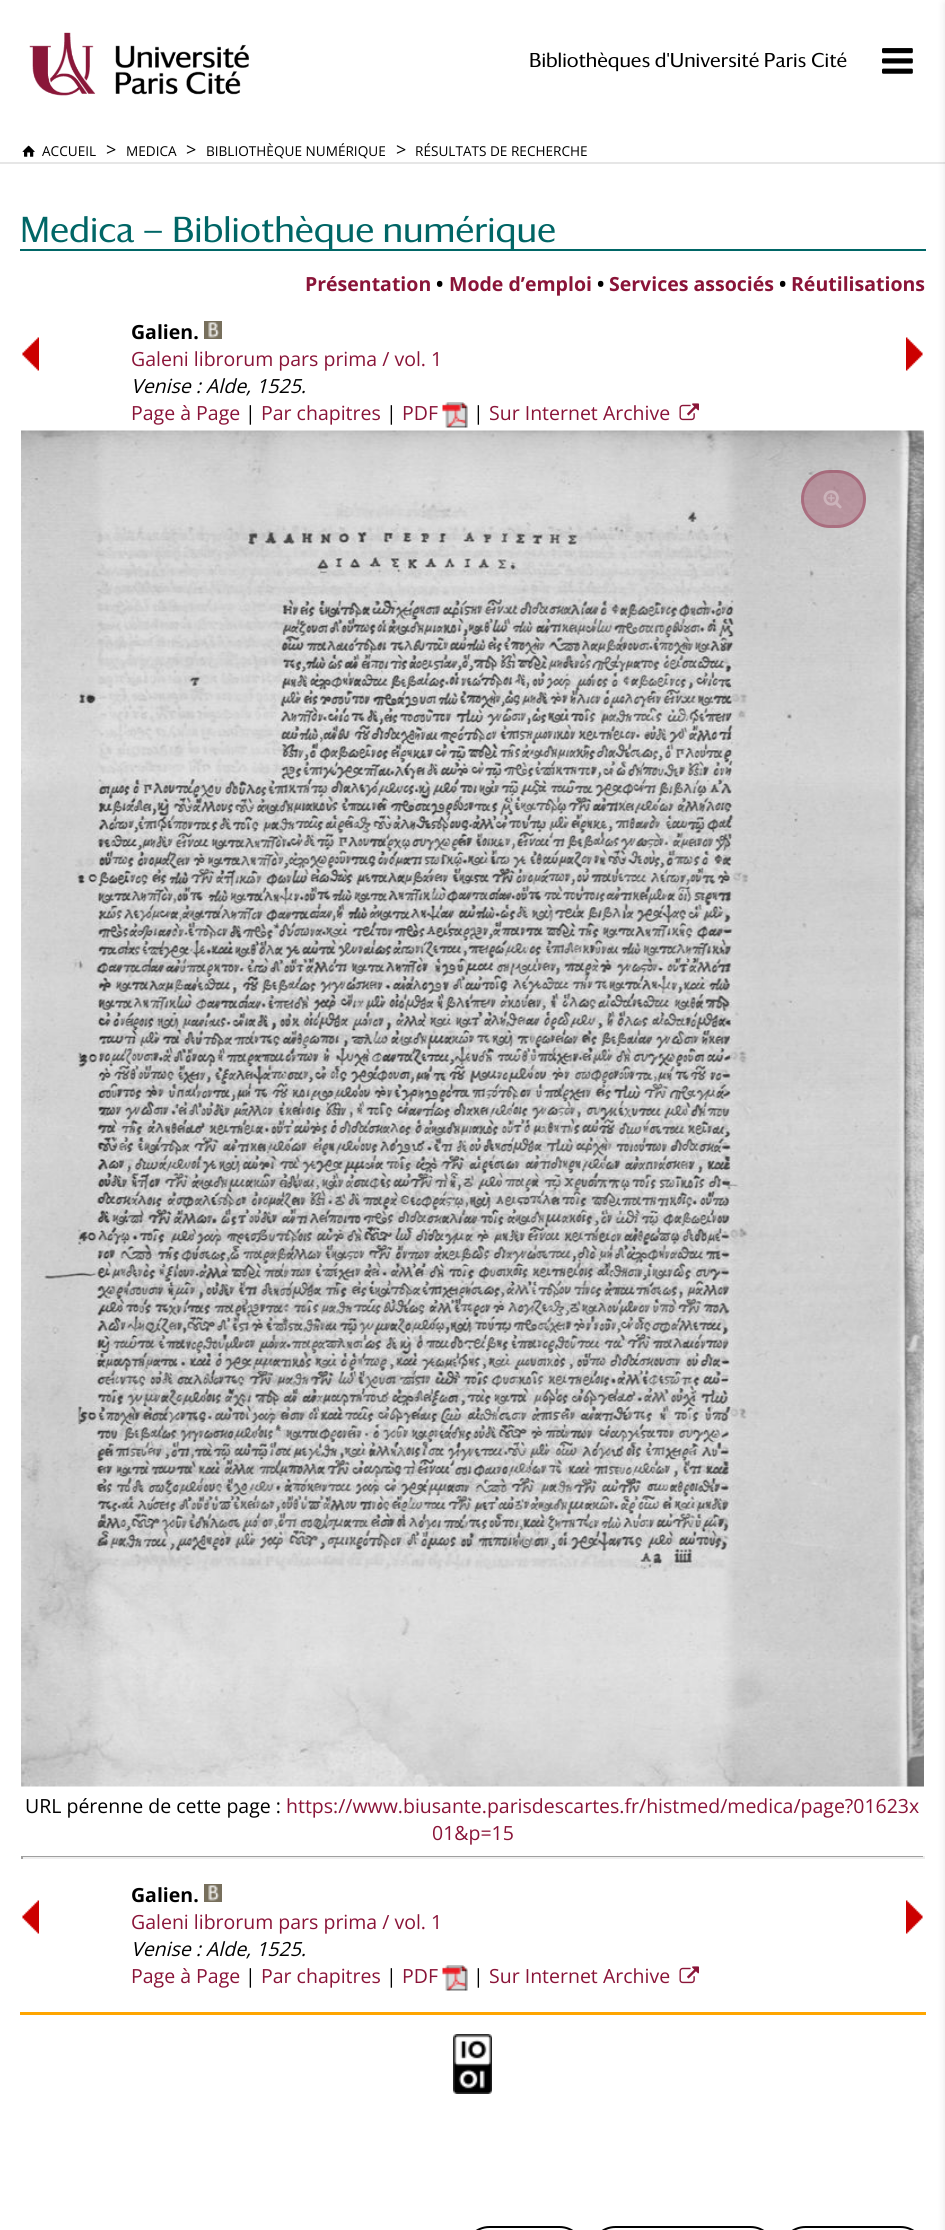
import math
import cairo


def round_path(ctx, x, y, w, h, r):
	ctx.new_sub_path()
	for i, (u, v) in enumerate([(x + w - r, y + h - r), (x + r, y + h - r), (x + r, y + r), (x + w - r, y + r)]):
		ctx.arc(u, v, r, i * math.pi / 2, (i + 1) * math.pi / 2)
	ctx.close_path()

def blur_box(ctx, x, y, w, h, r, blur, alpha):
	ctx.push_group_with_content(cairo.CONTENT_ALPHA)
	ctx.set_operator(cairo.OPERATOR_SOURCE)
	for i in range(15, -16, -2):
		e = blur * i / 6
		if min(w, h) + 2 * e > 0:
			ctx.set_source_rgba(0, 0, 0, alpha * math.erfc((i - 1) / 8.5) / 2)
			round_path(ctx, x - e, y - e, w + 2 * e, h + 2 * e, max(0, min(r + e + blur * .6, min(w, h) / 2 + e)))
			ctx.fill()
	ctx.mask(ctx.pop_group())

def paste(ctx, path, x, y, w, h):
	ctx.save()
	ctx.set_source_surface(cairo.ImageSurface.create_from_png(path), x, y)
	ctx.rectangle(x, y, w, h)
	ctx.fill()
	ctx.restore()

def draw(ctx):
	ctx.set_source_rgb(1, 1, 1)
	ctx.paint()
	ctx.set_source_rgb(0.902, 0.902, 0.902)
	ctx.rectangle(0, 162, 945, 2)
	ctx.fill()
	paste(ctx, 'media/1.png', 29, 32, 220, 64)
	ctx.select_font_face('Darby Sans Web')
	ctx.set_font_size(19.5)
	ctx.set_source_rgb(0, 0, 0)
	ctx.move_to(529, 67)
	ctx.show_text('Bibliothèques d\'Université Paris Cité')
	paste(ctx, 'media/2.png', 882, 48, 31, 26)
	ctx.set_source_rgb(0, 0, 0)
	blur_box(ctx, 945, 3, 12, 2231, 0, 4, 0.1)
	paste(ctx, 'media/3.png', 22, 145, 13, 12)
	ctx.select_font_face('Open Sans')
	ctx.set_font_size(13.6)
	ctx.set_source_rgb(0, 0, 0)
	ctx.move_to(42, 156)
	ctx.show_text('ACCUEIL')
	ctx.set_font_size(18)
	ctx.move_to(106, 156)
	ctx.show_text('>')
	ctx.set_font_size(13.6)
	ctx.move_to(126, 156)
	ctx.show_text('MEDICA')
	ctx.set_font_size(18)
	ctx.move_to(186, 156)
	ctx.show_text('>')
	ctx.set_font_size(13.6)
	ctx.move_to(206, 156)
	ctx.show_text('BIBLIOTHÈQUE NUMÉRIQUE')
	ctx.set_font_size(18)
	ctx.move_to(396, 156)
	ctx.show_text('>')
	ctx.set_font_size(13.6)
	ctx.move_to(415, 156)
	ctx.show_text('RÉSULTATS DE RECHERCHE')
	ctx.set_source_rgb(0, 0.4, 0.4)
	ctx.rectangle(20, 249, 906, 2)
	ctx.fill()
	ctx.select_font_face('Darby Sans Web')
	ctx.set_font_size(35.1)
	ctx.move_to(20, 242)
	ctx.show_text('Medica — Bibliothèque numérique')
	ctx.select_font_face('Open Sans', cairo.FONT_SLANT_NORMAL, cairo.FONT_WEIGHT_BOLD)
	ctx.set_font_size(19.5)
	ctx.set_source_rgb(0.541, 0.082, 0.22)
	ctx.move_to(305, 291)
	ctx.show_text('Présentation')
	ctx.set_source_rgb(0, 0, 0)
	ctx.move_to(436, 291)
	ctx.show_text('•')
	ctx.set_source_rgb(0.541, 0.082, 0.22)
	ctx.move_to(449, 291)
	ctx.show_text('Mode d’emploi')
	ctx.set_source_rgb(0, 0, 0)
	ctx.move_to(597, 291)
	ctx.show_text('•')
	ctx.set_source_rgb(0.541, 0.082, 0.22)
	ctx.move_to(609, 291)
	ctx.show_text('Services associés')
	ctx.set_source_rgb(0, 0, 0)
	ctx.move_to(779, 291)
	ctx.show_text('•')
	ctx.set_source_rgb(0.541, 0.082, 0.22)
	ctx.move_to(791, 291)
	ctx.show_text('Réutilisations')
	paste(ctx, 'media/4.png', 22, 337, 17, 34)
	ctx.set_source_rgb(0, 0, 0)
	ctx.move_to(131, 339)
	ctx.show_text('Galien.')
	paste(ctx, 'media/5.png', 204, 321, 18, 18)
	ctx.select_font_face('Open Sans')
	ctx.set_source_rgb(0.541, 0.082, 0.22)
	ctx.move_to(131, 366)
	ctx.show_text('Galeni librorum pars prima / vol. 1')
	ctx.select_font_face('Open Sans', cairo.FONT_SLANT_ITALIC)
	ctx.set_source_rgb(0, 0, 0)
	ctx.move_to(131, 393)
	ctx.show_text('Venise : Alde, 1525.')
	ctx.select_font_face('Open Sans')
	ctx.set_source_rgb(0.541, 0.082, 0.22)
	ctx.move_to(131, 420)
	ctx.show_text('Page à Page')
	ctx.set_source_rgb(0, 0, 0)
	ctx.move_to(245, 420)
	ctx.show_text('|')
	ctx.set_source_rgb(0.541, 0.082, 0.22)
	ctx.move_to(261, 420)
	ctx.show_text('Par chapitres')
	ctx.set_source_rgb(0, 0, 0)
	ctx.move_to(386, 420)
	ctx.show_text('|')
	ctx.set_source_rgb(0.541, 0.082, 0.22)
	ctx.move_to(402, 420)
	ctx.show_text('PDF')
	paste(ctx, 'media/6.png', 442, 402, 26, 26)
	ctx.set_source_rgb(0, 0, 0)
	ctx.move_to(473, 420)
	ctx.show_text('|')
	ctx.set_source_rgb(0.541, 0.082, 0.22)
	ctx.move_to(489, 420)
	ctx.show_text('Sur Internet Archive')
	paste(ctx, 'media/7.png', 679, 403, 20, 18)
	paste(ctx, 'media/8.png', 906, 337, 17, 34)
	paste(ctx, 'media/9.png', 21, 430, 903, 1357)
	ctx.set_source_rgba(0.541, 0.082, 0.22, 0.3)
	round_path(ctx, 801, 470, 65, 58, 29)
	ctx.fill()
	round_path(ctx, 802.5, 471.5, 62, 55, 27.5)
	ctx.set_line_width(3)
	ctx.stroke()
	paste(ctx, 'media/10.png', 823, 490, 19, 19)
	ctx.set_source_rgb(0, 0, 0)
	ctx.move_to(25, 1813)
	ctx.show_text('URL pérenne de cette page :')
	ctx.set_source_rgb(0.541, 0.082, 0.22)
	ctx.move_to(286, 1813)
	ctx.show_text('https://www.biusante.parisdescartes.fr/histmed/medica/page?01623x')
	ctx.move_to(432, 1840)
	ctx.show_text('01&p=15')
	ctx.set_source_rgb(0.624, 0.624, 0.624)
	ctx.rectangle(21, 1856, 903, 1)
	ctx.fill()
	ctx.set_source_rgb(0.933, 0.933, 0.933)
	ctx.rectangle(923, 1856, 2, 3)
	ctx.rectangle(21, 1857, 903, 2)
	ctx.fill()
	ctx.set_source_rgb(0.624, 0.624, 0.624)
	ctx.rectangle(21, 1856, 2, 3)
	ctx.fill()
	paste(ctx, 'media/4.png', 22, 1900, 17, 34)
	ctx.select_font_face('Open Sans', cairo.FONT_SLANT_NORMAL, cairo.FONT_WEIGHT_BOLD)
	ctx.set_source_rgb(0, 0, 0)
	ctx.move_to(131, 1902)
	ctx.show_text('Galien.')
	paste(ctx, 'media/5.png', 204, 1884, 18, 18)
	ctx.select_font_face('Open Sans')
	ctx.set_source_rgb(0.541, 0.082, 0.22)
	ctx.move_to(131, 1929)
	ctx.show_text('Galeni librorum pars prima / vol. 1')
	ctx.select_font_face('Open Sans', cairo.FONT_SLANT_ITALIC)
	ctx.set_source_rgb(0, 0, 0)
	ctx.move_to(131, 1956)
	ctx.show_text('Venise : Alde, 1525.')
	ctx.select_font_face('Open Sans')
	ctx.set_source_rgb(0.541, 0.082, 0.22)
	ctx.move_to(131, 1983)
	ctx.show_text('Page à Page')
	ctx.set_source_rgb(0, 0, 0)
	ctx.move_to(245, 1983)
	ctx.show_text('|')
	ctx.set_source_rgb(0.541, 0.082, 0.22)
	ctx.move_to(261, 1983)
	ctx.show_text('Par chapitres')
	ctx.set_source_rgb(0, 0, 0)
	ctx.move_to(386, 1983)
	ctx.show_text('|')
	ctx.set_source_rgb(0.541, 0.082, 0.22)
	ctx.move_to(402, 1983)
	ctx.show_text('PDF')
	paste(ctx, 'media/6.png', 442, 1965, 26, 26)
	ctx.set_source_rgb(0, 0, 0)
	ctx.move_to(473, 1983)
	ctx.show_text('|')
	ctx.set_source_rgb(0.541, 0.082, 0.22)
	ctx.move_to(489, 1983)
	ctx.show_text('Sur Internet Archive')
	paste(ctx, 'media/7.png', 679, 1966, 20, 18)
	paste(ctx, 'media/8.png', 906, 1900, 17, 34)
	ctx.set_source_rgb(1, 0.647, 0)
	ctx.rectangle(20, 2012, 906, 3)
	ctx.fill()
	paste(ctx, 'media/11.png', 453, 2034, 39, 60)
	round_path(ctx, 465, 2227, 119, 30, 24.5)
	ctx.set_source_rgb(0, 0, 0)
	ctx.set_line_width(2)
	ctx.stroke()
	round_path(ctx, 591, 2227, 184, 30, 24.5)
	ctx.stroke()
	round_path(ctx, 781, 2227, 144, 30, 24.5)
	ctx.stroke()


surface = cairo.ImageSurface(cairo.FORMAT_RGB24, 945, 2230)
ctx = cairo.Context(surface)
options = cairo.FontOptions()
options.set_hint_metrics(cairo.HINT_METRICS_OFF)
options.set_hint_style(cairo.HINT_STYLE_NONE)
ctx.set_font_options(options)
ctx.set_miter_limit(4)
draw(ctx)
surface.write_to_png('image.png')
